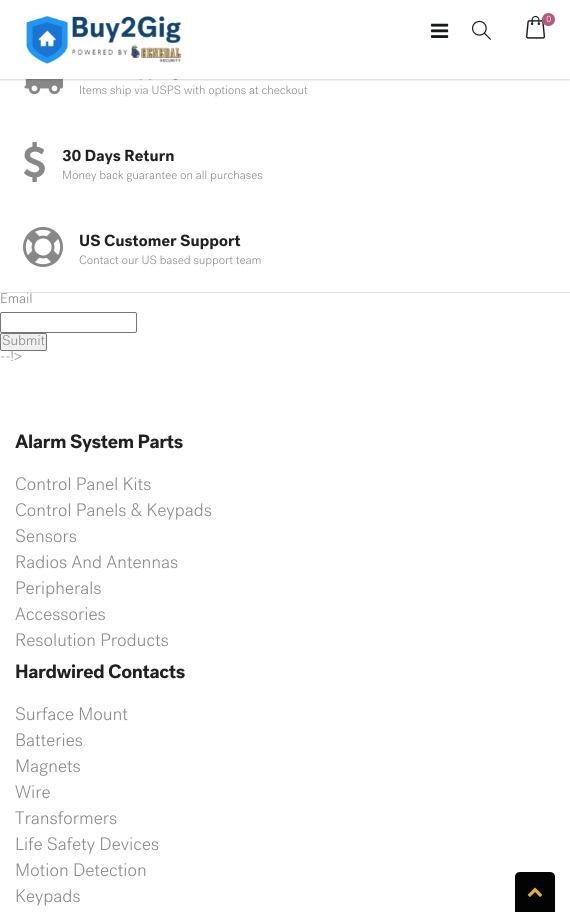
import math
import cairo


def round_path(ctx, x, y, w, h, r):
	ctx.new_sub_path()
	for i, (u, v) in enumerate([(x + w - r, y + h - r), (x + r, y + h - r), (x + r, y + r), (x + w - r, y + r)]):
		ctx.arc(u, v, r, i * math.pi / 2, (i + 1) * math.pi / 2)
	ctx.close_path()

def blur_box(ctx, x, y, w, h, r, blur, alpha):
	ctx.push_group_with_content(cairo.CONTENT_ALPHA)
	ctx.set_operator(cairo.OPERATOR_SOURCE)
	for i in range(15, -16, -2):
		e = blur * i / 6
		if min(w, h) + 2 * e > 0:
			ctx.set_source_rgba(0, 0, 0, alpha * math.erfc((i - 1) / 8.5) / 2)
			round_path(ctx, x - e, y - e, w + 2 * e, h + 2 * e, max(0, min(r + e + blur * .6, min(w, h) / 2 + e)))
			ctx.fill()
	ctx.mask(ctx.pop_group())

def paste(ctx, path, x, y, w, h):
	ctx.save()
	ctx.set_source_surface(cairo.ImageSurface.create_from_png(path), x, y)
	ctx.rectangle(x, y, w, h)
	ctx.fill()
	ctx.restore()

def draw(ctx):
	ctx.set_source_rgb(1, 1, 1)
	ctx.paint()
	paste(ctx, 'media/6.png', 24, 79, 39, 16)
	paste(ctx, 'media/7.png', 139, 79, 39, 1)
	ctx.set_source_rgb(0, 0, 0)
	blur_box(ctx, 0, 0, 570, 79, 0, 1.5, 0.3)
	ctx.set_source_rgb(1, 1, 1)
	ctx.rectangle(0, 0, 570, 79)
	ctx.fill()
	paste(ctx, 'media/1.png', 26, 15, 156, 49)
	paste(ctx, 'media/2.png', 431, 23, 18, 15)
	paste(ctx, 'media/3.png', 471, 20, 20, 20)
	paste(ctx, 'media/4.png', 525, 15, 21, 24)
	ctx.set_source_rgb(0.718, 0.349, 0.486)
	ctx.arc(548.5, 19.5, 6.5, 0, 2 * math.pi)
	ctx.fill()
	paste(ctx, 'media/5.png', 546, 15, 5, 8)
	ctx.set_source_rgb(0.882, 0.882, 0.882)
	ctx.rectangle(0, 292, 570, 1)
	ctx.fill()
	paste(ctx, 'media/8.png', 80, 85, 228, 12)
	paste(ctx, 'media/9.png', 24, 142, 21, 40)
	paste(ctx, 'media/10.png', 62, 149, 112, 16)
	paste(ctx, 'media/11.png', 63, 170, 200, 12)
	paste(ctx, 'media/12.png', 23, 227, 40, 40)
	paste(ctx, 'media/13.png', 80, 234, 161, 16)
	paste(ctx, 'media/14.png', 79, 255, 182, 12)
	paste(ctx, 'media/15.png', 1, 293, 31, 11)
	round_path(ctx, 0.5, 312.5, 136, 20, 1.5)
	ctx.set_source_rgb(0.463, 0.463, 0.463)
	ctx.set_line_width(1)
	ctx.stroke()
	ctx.set_source_rgb(0.937, 0.937, 0.937)
	round_path(ctx, 0.5, 333.5, 46, 17, 1.5)
	ctx.fill_preserve()
	ctx.set_source_rgb(0.463, 0.463, 0.463)
	ctx.stroke()
	paste(ctx, 'media/16.png', 2, 335, 43, 11)
	paste(ctx, 'media/17.png', 0, 351, 22, 10)
	paste(ctx, 'media/18.png', 15, 434, 168, 18)
	paste(ctx, 'media/19.png', 16, 477, 135, 14)
	paste(ctx, 'media/20.png', 16, 503, 196, 17)
	paste(ctx, 'media/21.png', 16, 529, 61, 14)
	paste(ctx, 'media/22.png', 16, 555, 162, 14)
	paste(ctx, 'media/23.png', 16, 581, 85, 17)
	paste(ctx, 'media/24.png', 15, 607, 90, 14)
	paste(ctx, 'media/25.png', 16, 633, 152, 14)
	paste(ctx, 'media/26.png', 16, 664, 169, 15)
	paste(ctx, 'media/27.png', 16, 707, 112, 14)
	paste(ctx, 'media/28.png', 16, 733, 67, 14)
	paste(ctx, 'media/29.png', 16, 759, 64, 17)
	paste(ctx, 'media/30.png', 15, 785, 35, 14)
	paste(ctx, 'media/31.png', 15, 811, 102, 14)
	paste(ctx, 'media/32.png', 16, 837, 143, 17)
	paste(ctx, 'media/33.png', 16, 863, 130, 14)
	paste(ctx, 'media/34.png', 16, 889, 64, 17)
	ctx.set_source_rgb(0.012, 0.012, 0.012)
	ctx.new_path()
	ctx.move_to(520, 872)
	ctx.line_to(550, 872)
	ctx.curve_to(553, 872, 555, 874, 555, 877)
	ctx.line_to(555, 912)
	ctx.line_to(515, 912)
	ctx.line_to(515, 877)
	ctx.curve_to(515, 874, 517, 872, 520, 872)
	ctx.close_path()
	ctx.fill()
	paste(ctx, 'media/35.png', 527, 887, 16, 10)


surface = cairo.ImageSurface(cairo.FORMAT_RGB24, 570, 912)
ctx = cairo.Context(surface)
options = cairo.FontOptions()
options.set_hint_metrics(cairo.HINT_METRICS_OFF)
options.set_hint_style(cairo.HINT_STYLE_NONE)
ctx.set_font_options(options)
ctx.set_miter_limit(4)
draw(ctx)
surface.write_to_png('image.png')
